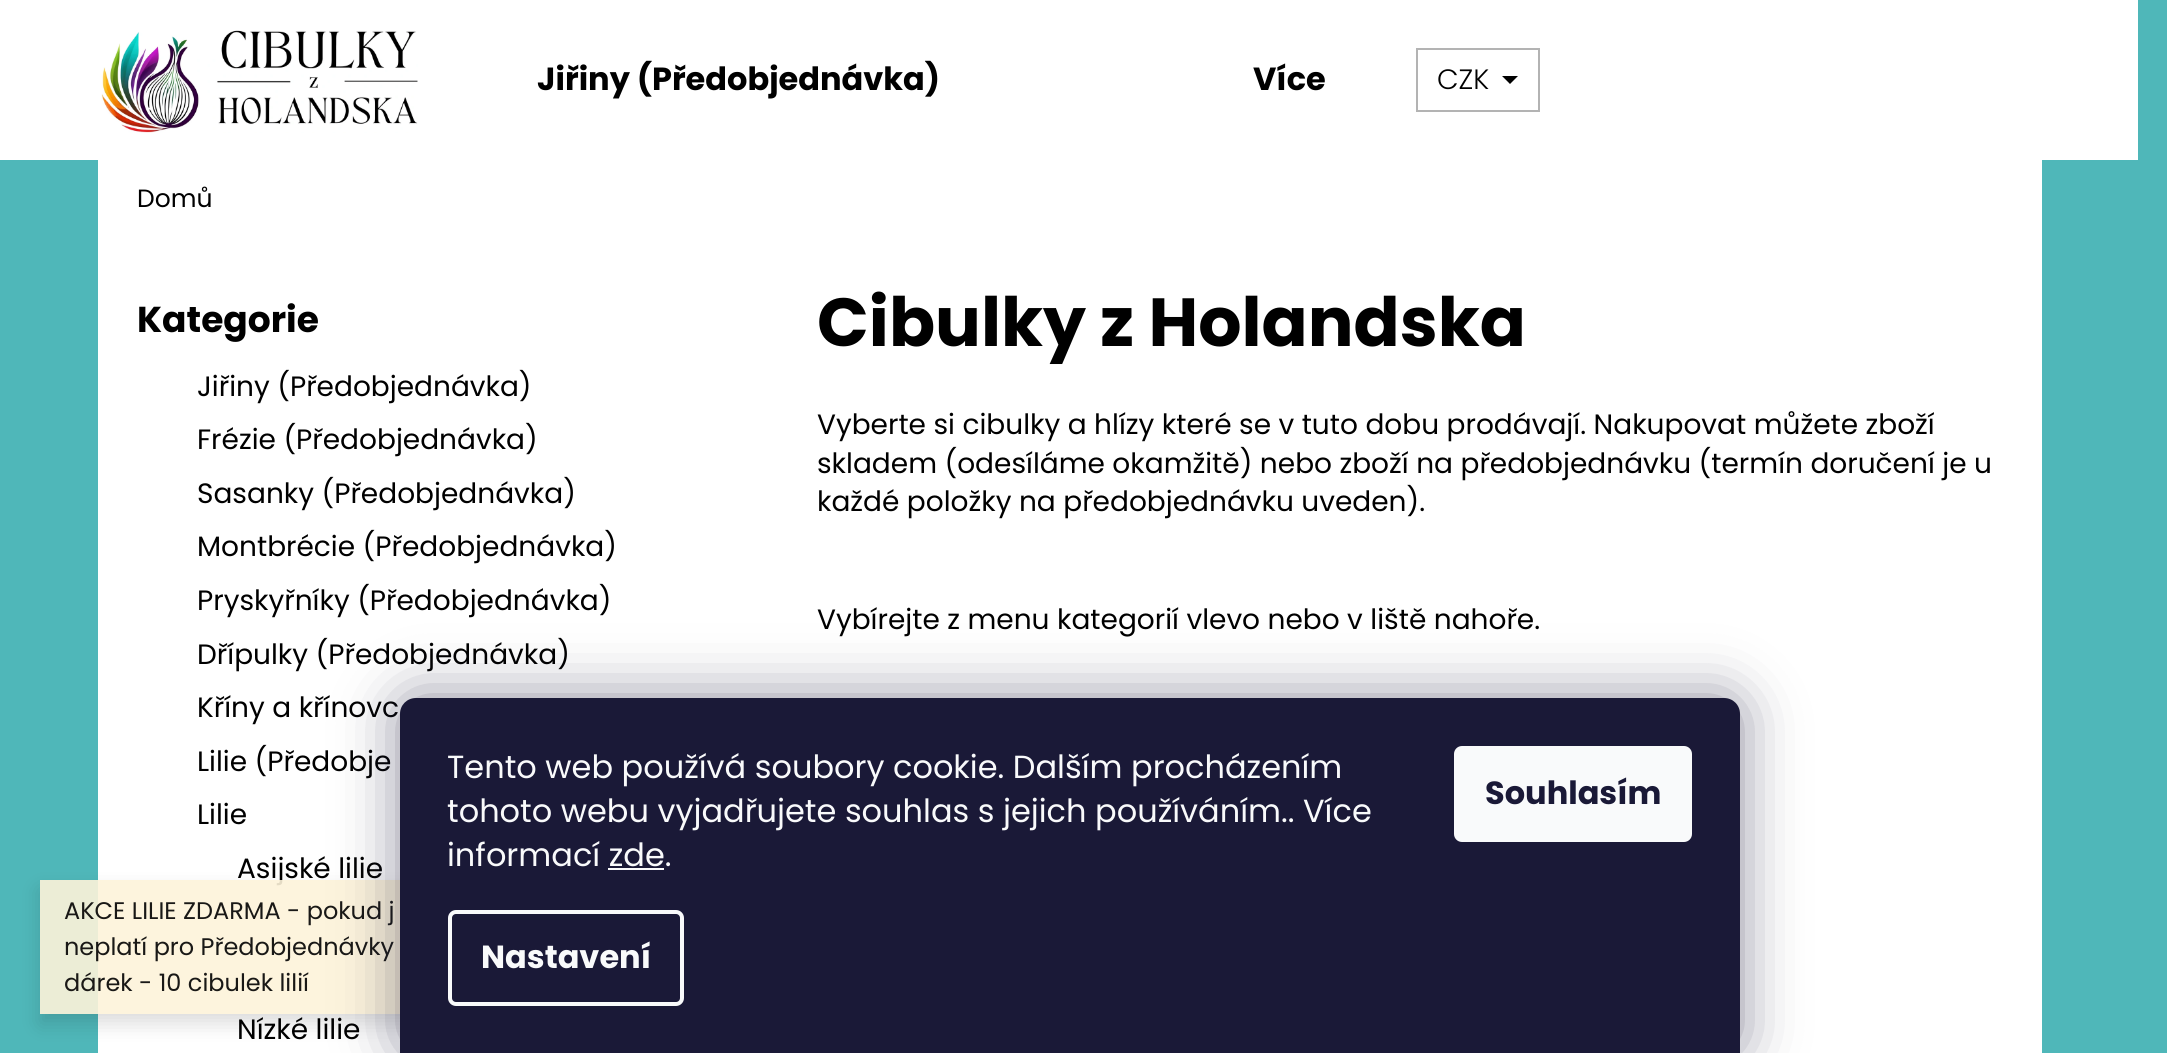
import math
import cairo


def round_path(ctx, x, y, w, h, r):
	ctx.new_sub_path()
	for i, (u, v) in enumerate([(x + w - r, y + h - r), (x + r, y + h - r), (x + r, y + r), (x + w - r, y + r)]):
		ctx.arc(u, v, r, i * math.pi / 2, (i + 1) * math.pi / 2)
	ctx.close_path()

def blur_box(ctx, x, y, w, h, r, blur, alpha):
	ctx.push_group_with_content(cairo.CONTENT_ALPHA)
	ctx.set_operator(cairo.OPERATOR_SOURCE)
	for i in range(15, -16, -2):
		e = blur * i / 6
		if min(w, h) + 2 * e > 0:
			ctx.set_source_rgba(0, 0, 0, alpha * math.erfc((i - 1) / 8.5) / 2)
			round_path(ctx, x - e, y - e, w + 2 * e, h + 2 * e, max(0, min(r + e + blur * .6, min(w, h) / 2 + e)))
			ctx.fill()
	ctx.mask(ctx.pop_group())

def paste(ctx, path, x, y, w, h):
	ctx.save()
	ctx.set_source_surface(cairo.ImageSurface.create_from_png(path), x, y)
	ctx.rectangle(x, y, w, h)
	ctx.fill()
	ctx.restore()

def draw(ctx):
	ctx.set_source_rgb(0.31, 0.718, 0.725)
	ctx.paint()
	ctx.set_source_rgb(1, 1, 1)
	ctx.rectangle(0, 0, 2138, 160)
	ctx.fill()
	paste(ctx, 'media/1.png', 101, 30, 317, 103)
	ctx.select_font_face('Poppins', cairo.FONT_SLANT_NORMAL, cairo.FONT_WEIGHT_BOLD)
	ctx.set_font_size(32)
	ctx.set_source_rgb(0, 0, 0)
	ctx.move_to(537, 90)
	ctx.show_text('Jiřiny (Předobjednávka)')
	ctx.move_to(1253, 90)
	ctx.show_text('Více')
	ctx.rectangle(1417, 49, 122, 62)
	ctx.set_source_rgb(0.702, 0.702, 0.702)
	ctx.stroke()
	ctx.select_font_face('Poppins Light')
	ctx.set_font_size(28)
	ctx.set_source_rgb(0, 0, 0)
	ctx.move_to(1437, 89)
	ctx.show_text('CZK')
	ctx.new_path()
	ctx.move_to(1502, 76)
	ctx.line_to(1518, 76)
	ctx.line_to(1510, 84)
	ctx.close_path()
	ctx.fill()
	ctx.set_source_rgb(1, 1, 1)
	ctx.rectangle(98, 160, 1944, 893)
	ctx.fill()
	ctx.select_font_face('Poppins')
	ctx.set_font_size(25)
	ctx.set_source_rgb(0, 0, 0)
	ctx.move_to(137, 207)
	ctx.show_text('Domů')
	ctx.select_font_face('Poppins', cairo.FONT_SLANT_NORMAL, cairo.FONT_WEIGHT_BOLD)
	ctx.set_font_size(36)
	ctx.move_to(137, 332)
	ctx.show_text('Kategorie')
	ctx.select_font_face('Poppins')
	ctx.set_font_size(28)
	for x, y, s in [
		(197, 396, 'Jiřiny (Předobjednávka)'),
		(197, 449, 'Frézie (Předobjednávka)'),
		(197, 503, 'Sasanky (Předobjednávka)'),
		(197, 556, 'Montbrécie (Předobjednávka)'),
		(197, 610, 'Pryskyřníky (Předobjednávka)'),
		(197, 664, 'Dřípulky (Předobjednávka)'),
		(197, 717, 'Kříny a křínovc'),
		(197, 771, 'Lilie (Předobje'),
		(197, 824, 'Lilie'),
		(237, 878, 'Asijské lilie'),
		(237, 1039, 'Nízké lilie'),
	]:
		ctx.move_to(x, y)
		ctx.show_text(s)
	ctx.select_font_face('Poppins', cairo.FONT_SLANT_NORMAL, cairo.FONT_WEIGHT_BOLD)
	ctx.set_font_size(68)
	ctx.move_to(817, 346)
	ctx.show_text('Cibulky z Holandska')
	ctx.select_font_face('Poppins')
	ctx.set_font_size(28)
	for x, y, s in [
		(817, 434, 'Vyberte si cibulky a hlízy které se v tuto dobu prodávají. Nakupovat můžete zboží'),
		(817, 473, 'skladem (odesíláme okamžitě) nebo zboží na předobjednávku (termín doručení je u'),
		(817, 511, 'každé položky na předobjednávku uveden).'),
		(817, 629, 'Vybírejte z menu kategorií vlevo nebo v liště nahoře.'),
	]:
		ctx.move_to(x, y)
		ctx.show_text(s)
	ctx.save()
	ctx.set_fill_rule(cairo.FILL_RULE_EVEN_ODD)
	ctx.new_path()
	ctx.move_to(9, 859)
	ctx.line_to(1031, 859)
	ctx.line_to(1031, 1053)
	ctx.line_to(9, 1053)
	ctx.close_path()
	ctx.move_to(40, 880)
	ctx.line_to(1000, 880)
	ctx.line_to(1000, 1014)
	ctx.line_to(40, 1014)
	ctx.close_path()
	ctx.clip()
	ctx.set_source_rgb(0, 0, 0)
	blur_box(ctx, 40, 890, 960, 134, 0, 10, 0.14)
	ctx.restore()
	ctx.set_source_rgba(0.992, 0.953, 0.855, 0.9)
	ctx.rectangle(40, 880, 360, 134)
	ctx.fill()
	ctx.set_font_size(24)
	ctx.set_source_rgb(0.098, 0.094, 0.086)
	for x, y, s in [
		(64, 919, 'AKCE LILIE ZDARMA - pokud j'),
		(64, 955, 'neplatí pro Předobjednávky'),
		(64, 991, 'dárek - 10 cibulek lilií'),
	]:
		ctx.move_to(x, y)
		ctx.show_text(s)
	ctx.set_source_rgb(0.106, 0.098, 0.224)
	blur_box(ctx, 400, 698, 1340, 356, 16, 30, 0.5)
	ctx.set_source_rgb(0.102, 0.098, 0.216)
	ctx.new_path()
	ctx.move_to(416, 698)
	ctx.line_to(1724, 698)
	ctx.curve_to(1733, 698, 1740, 705, 1740, 714)
	ctx.line_to(1740, 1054)
	ctx.line_to(400, 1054)
	ctx.line_to(400, 714)
	ctx.curve_to(400, 705, 407, 698, 416, 698)
	ctx.close_path()
	ctx.fill()
	ctx.set_font_size(32)
	ctx.set_source_rgb(0.973, 0.98, 0.984)
	for x, y, s in [
		(447, 778, 'Tento web používá soubory cookie. Dalším procházením'),
		(447, 822, 'tohoto webu vyjadřujete souhlas s jejich používáním.. Více'),
		(447, 866, 'informací zde.'),
	]:
		ctx.move_to(x, y)
		ctx.show_text(s)
	ctx.rectangle(608, 868, 56, 2)
	ctx.fill()
	round_path(ctx, 450, 912, 232, 92, 6)
	ctx.set_line_width(4)
	ctx.stroke()
	ctx.select_font_face('Poppins', cairo.FONT_SLANT_NORMAL, cairo.FONT_WEIGHT_BOLD)
	ctx.move_to(481, 968)
	ctx.show_text('Nastavení')
	round_path(ctx, 1454, 746, 238, 96, 8)
	ctx.fill()
	ctx.set_source_rgb(0.102, 0.098, 0.216)
	ctx.move_to(1485, 804)
	ctx.show_text('Souhlasím')


surface = cairo.ImageSurface(cairo.FORMAT_RGB24, 2167, 1053)
ctx = cairo.Context(surface)
options = cairo.FontOptions()
options.set_hint_metrics(cairo.HINT_METRICS_OFF)
options.set_hint_style(cairo.HINT_STYLE_NONE)
ctx.set_font_options(options)
ctx.set_miter_limit(4)
draw(ctx)
surface.write_to_png('image.png')
